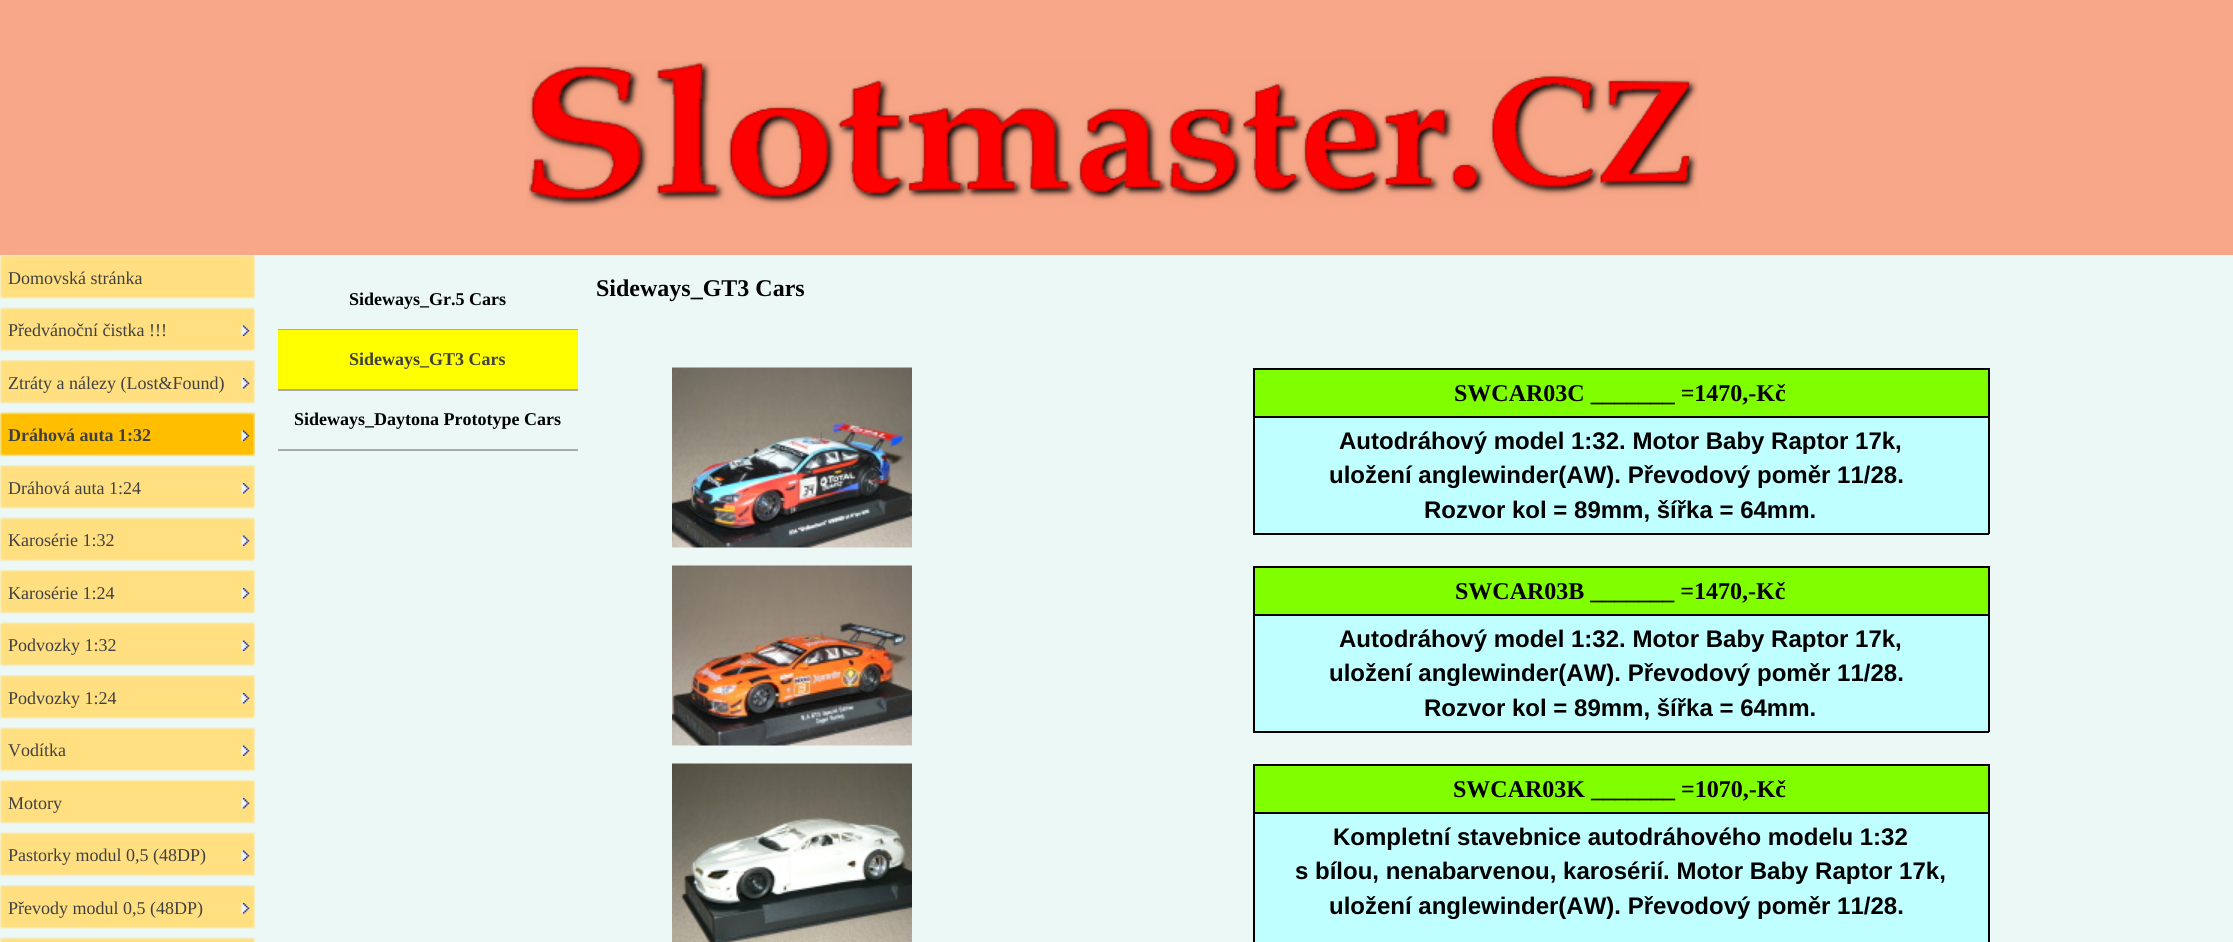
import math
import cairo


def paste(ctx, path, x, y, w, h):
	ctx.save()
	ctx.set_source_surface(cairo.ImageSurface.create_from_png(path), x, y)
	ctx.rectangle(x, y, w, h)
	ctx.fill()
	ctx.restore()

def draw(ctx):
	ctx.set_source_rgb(0.969, 0.655, 0.533)
	ctx.paint()
	paste(ctx, 'media/1.png', 527, 61, 1171, 147)
	ctx.set_source_rgb(0.918, 0.969, 0.961)
	ctx.rectangle(0, 255, 2233, 687)
	ctx.fill()
	paste(ctx, 'media/2.png', 0, 255, 255, 44)
	ctx.select_font_face('Liberation Serif')
	ctx.set_font_size(18)
	ctx.set_source_rgb(0.251, 0.251, 0.251)
	ctx.move_to(8, 284)
	ctx.show_text('Domovská stránka')
	paste(ctx, 'media/3.png', 0, 307, 255, 45)
	ctx.move_to(8, 336)
	ctx.show_text('Předvánoční čistka !!!')
	paste(ctx, 'media/4.png', 241, 325, 9, 11)
	paste(ctx, 'media/2.png', 0, 360, 255, 44)
	ctx.move_to(8, 389)
	ctx.show_text('Ztráty a nálezy (Lost&Found)')
	paste(ctx, 'media/5.png', 241, 378, 9, 11)
	paste(ctx, 'media/6.png', 0, 412, 255, 45)
	ctx.select_font_face('Liberation Serif', cairo.FONT_SLANT_NORMAL, cairo.FONT_WEIGHT_BOLD)
	ctx.move_to(8, 441)
	ctx.show_text('Dráhová auta 1:32')
	paste(ctx, 'media/7.png', 241, 430, 9, 11)
	paste(ctx, 'media/2.png', 0, 465, 255, 44)
	ctx.select_font_face('Liberation Serif')
	ctx.move_to(8, 494)
	ctx.show_text('Dráhová auta 1:24')
	paste(ctx, 'media/5.png', 241, 483, 9, 11)
	paste(ctx, 'media/3.png', 0, 517, 255, 45)
	ctx.move_to(8, 546)
	ctx.show_text('Karosérie 1:32')
	paste(ctx, 'media/4.png', 241, 535, 9, 11)
	paste(ctx, 'media/2.png', 0, 570, 255, 44)
	ctx.move_to(8, 599)
	ctx.show_text('Karosérie 1:24')
	paste(ctx, 'media/5.png', 241, 588, 9, 11)
	paste(ctx, 'media/3.png', 0, 622, 255, 45)
	ctx.move_to(8, 651)
	ctx.show_text('Podvozky 1:32')
	paste(ctx, 'media/4.png', 241, 640, 9, 11)
	paste(ctx, 'media/2.png', 0, 675, 255, 44)
	ctx.move_to(8, 704)
	ctx.show_text('Podvozky 1:24')
	paste(ctx, 'media/5.png', 241, 693, 9, 11)
	paste(ctx, 'media/3.png', 0, 727, 255, 45)
	ctx.move_to(8, 756)
	ctx.show_text('Vodítka')
	paste(ctx, 'media/4.png', 241, 745, 9, 11)
	paste(ctx, 'media/2.png', 0, 780, 255, 44)
	ctx.move_to(8, 809)
	ctx.show_text('Motory')
	paste(ctx, 'media/5.png', 241, 798, 9, 11)
	paste(ctx, 'media/3.png', 0, 832, 255, 45)
	ctx.move_to(8, 861)
	ctx.show_text('Pastorky modul 0,5 (48DP)')
	paste(ctx, 'media/4.png', 241, 850, 9, 11)
	paste(ctx, 'media/2.png', 0, 885, 255, 44)
	ctx.move_to(8, 914)
	ctx.show_text('Převody modul 0,5 (48DP)')
	paste(ctx, 'media/5.png', 241, 903, 9, 11)
	paste(ctx, 'media/8.png', 0, 937, 255, 5)
	ctx.set_source_rgb(0.663, 0.663, 0.663)
	ctx.rectangle(278, 329, 300, 1)
	ctx.fill()
	ctx.select_font_face('Liberation Serif', cairo.FONT_SLANT_NORMAL, cairo.FONT_WEIGHT_BOLD)
	ctx.set_source_rgb(0, 0, 0)
	ctx.move_to(349, 305)
	ctx.show_text('Sideways_Gr.5 Cars')
	ctx.set_source_rgb(1, 1, 0)
	ctx.rectangle(278, 330, 300, 59)
	ctx.fill()
	ctx.set_source_rgb(0.663, 0.663, 0.663)
	ctx.rectangle(278, 389, 300, 2)
	ctx.fill()
	ctx.set_source_rgb(0.251, 0.251, 0.251)
	ctx.move_to(349, 365)
	ctx.show_text('Sideways_GT3 Cars')
	ctx.set_source_rgb(0.663, 0.663, 0.663)
	ctx.rectangle(278, 449, 300, 2)
	ctx.fill()
	ctx.set_source_rgb(0, 0, 0)
	ctx.move_to(294, 425)
	ctx.show_text('Sideways_Daytona Prototype Cars')
	ctx.set_font_size(24)
	ctx.move_to(596, 296)
	ctx.show_text('Sideways_GT3 Cars')
	paste(ctx, 'media/9.png', 672, 367, 240, 181)
	ctx.set_source_rgb(0.502, 1, 0)
	ctx.rectangle(1255, 370, 733, 46)
	ctx.fill()
	ctx.set_source_rgb(0, 0, 0)
	ctx.rectangle(1253, 368, 736, 2)
	ctx.rectangle(1253, 416, 736, 2)
	ctx.rectangle(1988, 416, 2, 118)
	ctx.rectangle(1988, 368, 2, 49)
	ctx.rectangle(1253, 533, 736, 2)
	ctx.rectangle(1253, 416, 2, 118)
	ctx.rectangle(1253, 368, 2, 49)
	ctx.fill()
	ctx.move_to(1454, 401)
	ctx.show_text('SWCAR03C _______ =1470,-Kč')
	ctx.set_source_rgb(0.749, 1, 1)
	ctx.rectangle(1255, 418, 733, 115)
	ctx.fill()
	ctx.select_font_face('Liberation Sans', cairo.FONT_SLANT_NORMAL, cairo.FONT_WEIGHT_BOLD)
	ctx.set_source_rgb(0, 0, 0)
	for x, y, s in [
		(1339, 449, 'Autodráhový model 1:32. Motor Baby Raptor 17k,'),
		(1329, 483, 'uložení anglewinder(AW). Převodový poměr 11/28.'),
		(1424, 518, 'Rozvor kol = 89mm, šířka = 64mm.'),
	]:
		ctx.move_to(x, y)
		ctx.show_text(s)
	paste(ctx, 'media/10.png', 672, 565, 240, 181)
	ctx.set_source_rgb(0.502, 1, 0)
	ctx.rectangle(1255, 568, 733, 46)
	ctx.fill()
	ctx.set_source_rgb(0, 0, 0)
	ctx.rectangle(1253, 566, 736, 2)
	ctx.rectangle(1253, 614, 736, 2)
	ctx.rectangle(1988, 614, 2, 118)
	ctx.rectangle(1988, 566, 2, 49)
	ctx.rectangle(1253, 731, 736, 2)
	ctx.rectangle(1253, 614, 2, 118)
	ctx.rectangle(1253, 566, 2, 49)
	ctx.fill()
	ctx.select_font_face('Liberation Serif', cairo.FONT_SLANT_NORMAL, cairo.FONT_WEIGHT_BOLD)
	ctx.move_to(1455, 599)
	ctx.show_text('SWCAR03B _______ =1470,-Kč')
	ctx.set_source_rgb(0.749, 1, 1)
	ctx.rectangle(1255, 616, 733, 115)
	ctx.fill()
	ctx.select_font_face('Liberation Sans', cairo.FONT_SLANT_NORMAL, cairo.FONT_WEIGHT_BOLD)
	ctx.set_source_rgb(0, 0, 0)
	for x, y, s in [
		(1339, 647, 'Autodráhový model 1:32. Motor Baby Raptor 17k,'),
		(1329, 681, 'uložení anglewinder(AW). Převodový poměr 11/28.'),
		(1424, 716, 'Rozvor kol = 89mm, šířka = 64mm.'),
	]:
		ctx.move_to(x, y)
		ctx.show_text(s)
	paste(ctx, 'media/11.png', 672, 763, 240, 179)
	ctx.set_source_rgb(0.502, 1, 0)
	ctx.rectangle(1255, 766, 733, 46)
	ctx.fill()
	ctx.set_source_rgb(0, 0, 0)
	ctx.rectangle(1253, 764, 736, 2)
	ctx.rectangle(1253, 812, 736, 2)
	ctx.rectangle(1988, 812, 2, 130)
	ctx.rectangle(1988, 764, 2, 49)
	ctx.rectangle(1253, 812, 2, 130)
	ctx.rectangle(1253, 764, 2, 49)
	ctx.fill()
	ctx.select_font_face('Liberation Serif', cairo.FONT_SLANT_NORMAL, cairo.FONT_WEIGHT_BOLD)
	ctx.move_to(1453, 797)
	ctx.show_text('SWCAR03K _______ =1070,-Kč')
	ctx.set_source_rgb(0.749, 1, 1)
	ctx.rectangle(1255, 814, 733, 128)
	ctx.fill()
	ctx.select_font_face('Liberation Sans', cairo.FONT_SLANT_NORMAL, cairo.FONT_WEIGHT_BOLD)
	ctx.set_source_rgb(0, 0, 0)
	for x, y, s in [
		(1333, 845, 'Kompletní stavebnice autodráhového modelu 1:32'),
		(1295, 879, 's bílou, nenabarvenou, karosérií. Motor Baby Raptor 17k,'),
		(1329, 914, 'uložení anglewinder(AW). Převodový poměr 11/28.'),
	]:
		ctx.move_to(x, y)
		ctx.show_text(s)


surface = cairo.ImageSurface(cairo.FORMAT_RGB24, 2233, 942)
ctx = cairo.Context(surface)
options = cairo.FontOptions()
options.set_hint_metrics(cairo.HINT_METRICS_OFF)
options.set_hint_style(cairo.HINT_STYLE_NONE)
ctx.set_font_options(options)
ctx.set_miter_limit(4)
draw(ctx)
surface.write_to_png('image.png')
